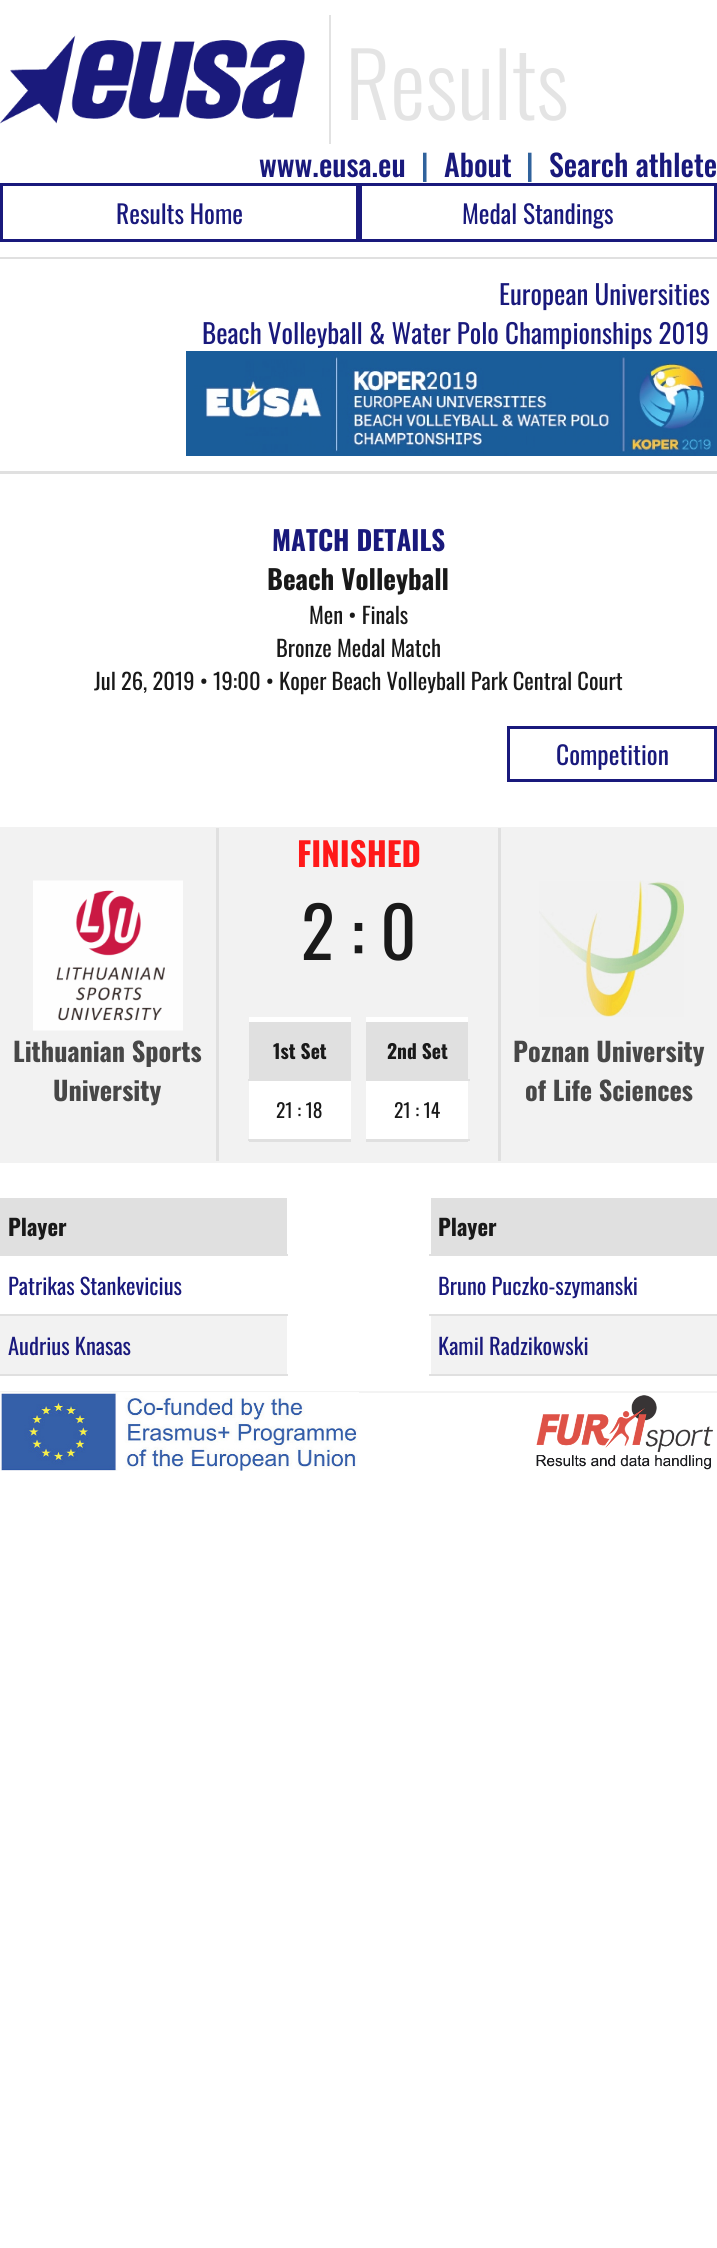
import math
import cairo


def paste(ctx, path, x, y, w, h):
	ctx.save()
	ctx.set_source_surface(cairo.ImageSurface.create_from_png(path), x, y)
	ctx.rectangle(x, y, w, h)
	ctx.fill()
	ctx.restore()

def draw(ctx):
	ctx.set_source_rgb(1, 1, 1)
	ctx.paint()
	ctx.set_source_rgb(0.878, 0.878, 0.878)
	ctx.rectangle(0, 257, 717, 2)
	ctx.fill()
	ctx.set_source_rgb(0.886, 0.886, 0.886)
	ctx.rectangle(329, 15, 2, 129)
	ctx.fill()
	paste(ctx, 'media/1.png', 0, 35, 305, 89)
	ctx.select_font_face('Oswald Light')
	ctx.set_font_size(88.5)
	ctx.set_source_rgb(0.894, 0.894, 0.894)
	ctx.move_to(345, 120)
	ctx.show_text('Results')
	ctx.select_font_face('Oswald Medium')
	ctx.set_font_size(30)
	ctx.set_source_rgb(0.098, 0.098, 0.486)
	ctx.move_to(259, 177)
	ctx.show_text('www.eusa.eu')
	ctx.set_source_rgb(0.188, 0.384, 0.612)
	ctx.move_to(421, 177)
	ctx.show_text('|')
	ctx.set_source_rgb(0.098, 0.098, 0.486)
	ctx.move_to(444, 177)
	ctx.show_text('About')
	ctx.set_source_rgb(0.188, 0.384, 0.612)
	ctx.move_to(526, 177)
	ctx.show_text('|')
	ctx.set_source_rgb(0.098, 0.098, 0.486)
	ctx.move_to(549, 177)
	ctx.show_text('Search athlete')
	ctx.rectangle(1.5, 184.5, 356, 56)
	ctx.set_line_width(3)
	ctx.stroke()
	ctx.select_font_face('Oswald')
	ctx.set_font_size(25.5)
	ctx.move_to(116, 224)
	ctx.show_text('Results Home')
	ctx.rectangle(360.5, 184.5, 355, 56)
	ctx.stroke()
	ctx.move_to(462, 224)
	ctx.show_text('Medal Standings')
	ctx.set_source_rgb(0.878, 0.878, 0.878)
	ctx.rectangle(0, 471, 717, 3)
	ctx.fill()
	ctx.set_font_size(27)
	ctx.set_source_rgb(0.098, 0.098, 0.486)
	ctx.move_to(499, 305)
	ctx.show_text('European Universities')
	ctx.move_to(202, 344)
	ctx.show_text('Beach Volleyball & Water Polo Championships 2019')
	paste(ctx, 'media/2.png', 186, 351, 531, 105)
	ctx.select_font_face('Oswald', cairo.FONT_SLANT_NORMAL, cairo.FONT_WEIGHT_BOLD)
	ctx.move_to(272, 551)
	ctx.show_text('MATCH DETAILS')
	ctx.set_source_rgb(0.098, 0.098, 0.098)
	ctx.move_to(267, 590)
	ctx.show_text('Beach Volleyball')
	ctx.select_font_face('Oswald')
	ctx.set_font_size(22.5)
	for x, y, s in [
		(309, 624, 'Men • Finals'),
		(276, 657, 'Bronze Medal Match'),
		(94, 690, 'Jul 26, 2019 • 19:00 • Koper Beach Volleyball Park Central Court'),
	]:
		ctx.move_to(x, y)
		ctx.show_text(s)
	ctx.rectangle(508.5, 727.5, 207, 53)
	ctx.set_source_rgb(0.098, 0.098, 0.486)
	ctx.stroke()
	ctx.set_font_size(25.5)
	ctx.move_to(556, 765)
	ctx.show_text('Competition')
	ctx.set_source_rgb(0.949, 0.949, 0.949)
	ctx.rectangle(0, 827, 717, 336)
	ctx.fill()
	paste(ctx, 'media/3.png', 33, 880, 150, 151)
	ctx.select_font_face('Oswald', cairo.FONT_SLANT_NORMAL, cairo.FONT_WEIGHT_BOLD)
	ctx.set_font_size(26.25)
	ctx.set_source_rgb(0.278, 0.278, 0.278)
	ctx.move_to(13, 1062)
	ctx.show_text('Lithuanian Sports')
	ctx.move_to(53, 1101)
	ctx.show_text('University')
	ctx.set_source_rgb(0.878, 0.878, 0.878)
	ctx.rectangle(498, 828, 3, 333)
	ctx.fill()
	ctx.rectangle(216, 828, 3, 333)
	ctx.fill()
	ctx.set_font_size(33)
	ctx.set_source_rgb(1, 0.098, 0.098)
	ctx.move_to(297, 867)
	ctx.show_text('FINISHED')
	ctx.select_font_face('Oswald')
	ctx.set_font_size(70)
	ctx.set_source_rgb(0.098, 0.098, 0.098)
	ctx.move_to(301, 960)
	ctx.show_text('2 : 0')
	ctx.set_source_rgb(0.878, 0.878, 0.878)
	ctx.rectangle(249, 1141, 102, 1)
	ctx.fill()
	ctx.set_source_rgb(1, 1, 1)
	ctx.rectangle(249, 1017, 102, 5)
	ctx.fill()
	ctx.set_source_rgb(0.878, 0.878, 0.878)
	ctx.rectangle(248, 1079, 103, 2)
	ctx.rectangle(249, 1022, 102, 57)
	ctx.fill()
	ctx.select_font_face('Oswald', cairo.FONT_SLANT_NORMAL, cairo.FONT_WEIGHT_BOLD)
	ctx.set_font_size(19.5)
	ctx.set_source_rgb(0.098, 0.098, 0.098)
	ctx.move_to(273, 1059)
	ctx.show_text('1st Set')
	ctx.set_source_rgb(1, 1, 1)
	ctx.rectangle(249, 1081, 102, 58)
	ctx.fill()
	ctx.set_source_rgb(0.878, 0.878, 0.878)
	ctx.rectangle(248, 1139, 103, 2)
	ctx.fill()
	ctx.select_font_face('Oswald')
	ctx.set_source_rgb(0.098, 0.098, 0.098)
	ctx.move_to(276, 1118)
	ctx.show_text('21 : 18')
	ctx.set_source_rgb(0.878, 0.878, 0.878)
	ctx.rectangle(366, 1141, 102, 1)
	ctx.fill()
	ctx.set_source_rgb(1, 1, 1)
	ctx.rectangle(366, 1017, 102, 5)
	ctx.fill()
	ctx.set_source_rgb(0.878, 0.878, 0.878)
	ctx.rectangle(366, 1079, 104, 2)
	ctx.rectangle(366, 1022, 102, 57)
	ctx.fill()
	ctx.select_font_face('Oswald', cairo.FONT_SLANT_NORMAL, cairo.FONT_WEIGHT_BOLD)
	ctx.set_source_rgb(0.098, 0.098, 0.098)
	ctx.move_to(387, 1059)
	ctx.show_text('2nd Set')
	ctx.set_source_rgb(1, 1, 1)
	ctx.rectangle(366, 1081, 102, 58)
	ctx.fill()
	ctx.set_source_rgb(0.878, 0.878, 0.878)
	ctx.rectangle(366, 1139, 104, 2)
	ctx.fill()
	ctx.select_font_face('Oswald')
	ctx.set_source_rgb(0.098, 0.098, 0.098)
	ctx.move_to(394, 1118)
	ctx.show_text('21 : 14')
	paste(ctx, 'media/4.png', 539, 880, 145, 137)
	ctx.select_font_face('Oswald', cairo.FONT_SLANT_NORMAL, cairo.FONT_WEIGHT_BOLD)
	ctx.set_font_size(26.25)
	ctx.set_source_rgb(0.278, 0.278, 0.278)
	ctx.move_to(513, 1062)
	ctx.show_text('Poznan University')
	ctx.move_to(525, 1101)
	ctx.show_text('of Life Sciences')
	ctx.set_source_rgb(0.878, 0.878, 0.878)
	ctx.rectangle(0, 1254, 288, 2)
	ctx.fill()
	ctx.rectangle(0, 1198, 287, 56)
	ctx.fill()
	ctx.set_font_size(22.5)
	ctx.set_source_rgb(0.098, 0.098, 0.098)
	ctx.move_to(8, 1236)
	ctx.show_text('Player')
	ctx.set_source_rgb(0.878, 0.878, 0.878)
	ctx.rectangle(0, 1314, 288, 2)
	ctx.fill()
	ctx.select_font_face('Oswald')
	ctx.set_source_rgb(0.098, 0.098, 0.486)
	ctx.move_to(8, 1295)
	ctx.show_text('Patrikas Stankevicius')
	ctx.set_source_rgb(0.949, 0.949, 0.949)
	ctx.rectangle(0, 1316, 287, 58)
	ctx.fill()
	ctx.set_source_rgb(0.878, 0.878, 0.878)
	ctx.rectangle(0, 1374, 288, 2)
	ctx.fill()
	ctx.set_source_rgb(0.098, 0.098, 0.486)
	ctx.move_to(8, 1355)
	ctx.show_text('Audrius Knasas')
	ctx.set_source_rgb(0.878, 0.878, 0.878)
	ctx.rectangle(429, 1254, 288, 2)
	ctx.fill()
	ctx.rectangle(431, 1198, 286, 56)
	ctx.fill()
	ctx.select_font_face('Oswald', cairo.FONT_SLANT_NORMAL, cairo.FONT_WEIGHT_BOLD)
	ctx.set_source_rgb(0.098, 0.098, 0.098)
	ctx.move_to(438, 1236)
	ctx.show_text('Player')
	ctx.set_source_rgb(0.878, 0.878, 0.878)
	ctx.rectangle(429, 1314, 288, 2)
	ctx.fill()
	ctx.select_font_face('Oswald')
	ctx.set_source_rgb(0.098, 0.098, 0.486)
	ctx.move_to(438, 1295)
	ctx.show_text('Bruno Puczko-szymanski')
	ctx.set_source_rgb(0.949, 0.949, 0.949)
	ctx.rectangle(431, 1316, 286, 58)
	ctx.fill()
	ctx.set_source_rgb(0.878, 0.878, 0.878)
	ctx.rectangle(429, 1374, 288, 2)
	ctx.fill()
	ctx.set_source_rgb(0.098, 0.098, 0.486)
	ctx.move_to(438, 1355)
	ctx.show_text('Kamil Radzikowski')
	ctx.set_source_rgb(0.953, 0.953, 0.953)
	ctx.rectangle(0, 1391, 717, 2)
	ctx.fill()
	paste(ctx, 'media/5.png', 0, 1392, 359, 79)
	paste(ctx, 'media/6.png', 536, 1395, 177, 75)


surface = cairo.ImageSurface(cairo.FORMAT_RGB24, 717, 2248)
ctx = cairo.Context(surface)
options = cairo.FontOptions()
options.set_hint_metrics(cairo.HINT_METRICS_OFF)
options.set_hint_style(cairo.HINT_STYLE_NONE)
ctx.set_font_options(options)
ctx.set_miter_limit(4)
draw(ctx)
surface.write_to_png('image.png')
